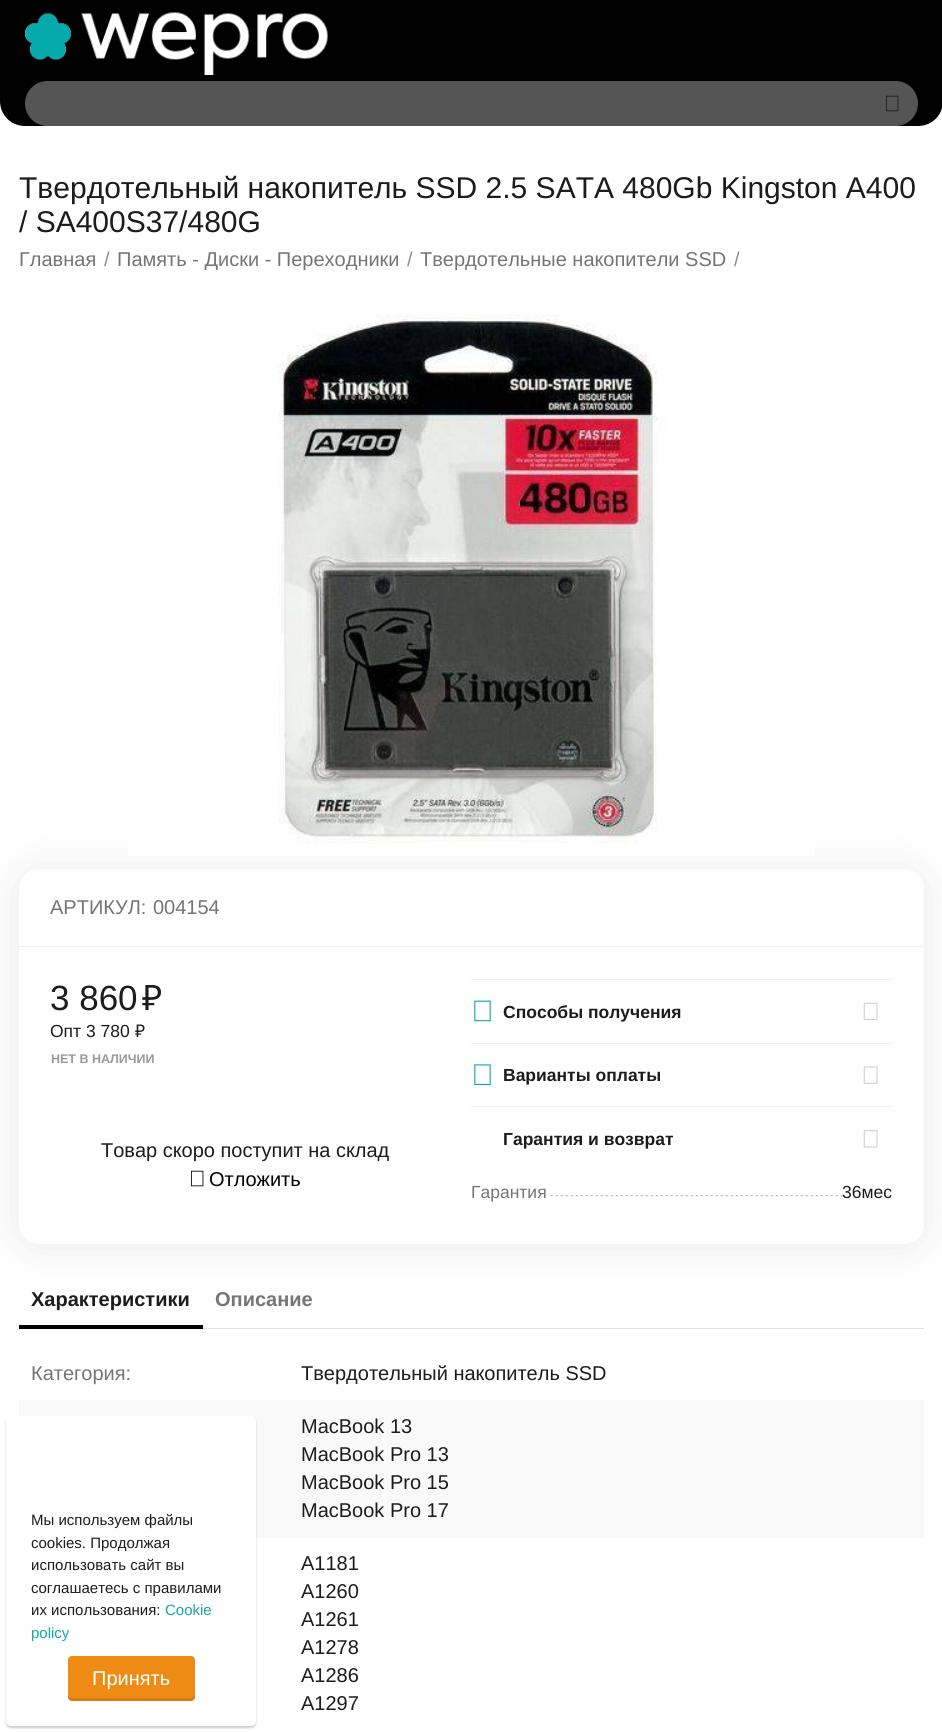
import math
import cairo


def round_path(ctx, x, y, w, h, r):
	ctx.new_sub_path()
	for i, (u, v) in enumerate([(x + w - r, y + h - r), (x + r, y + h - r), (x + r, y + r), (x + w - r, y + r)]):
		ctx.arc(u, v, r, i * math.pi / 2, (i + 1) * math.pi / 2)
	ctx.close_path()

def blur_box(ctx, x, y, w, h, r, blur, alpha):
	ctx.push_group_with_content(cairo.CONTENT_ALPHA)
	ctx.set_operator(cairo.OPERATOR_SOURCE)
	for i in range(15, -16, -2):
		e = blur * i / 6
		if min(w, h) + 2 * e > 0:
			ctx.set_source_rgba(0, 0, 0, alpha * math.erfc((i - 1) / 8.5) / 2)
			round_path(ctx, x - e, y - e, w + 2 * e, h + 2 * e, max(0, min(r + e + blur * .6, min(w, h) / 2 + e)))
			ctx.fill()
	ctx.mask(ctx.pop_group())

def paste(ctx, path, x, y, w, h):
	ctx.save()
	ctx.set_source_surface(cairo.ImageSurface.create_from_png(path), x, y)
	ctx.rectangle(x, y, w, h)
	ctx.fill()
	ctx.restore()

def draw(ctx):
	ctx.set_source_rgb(1, 1, 1)
	ctx.paint()
	ctx.set_source_rgb(0, 0, 0)
	ctx.new_path()
	ctx.move_to(0, 0)
	ctx.line_to(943, 0)
	ctx.line_to(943, 101)
	ctx.curve_to(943, 115, 932, 126, 918, 126)
	ctx.line_to(25, 126)
	ctx.curve_to(11, 126, 0, 115, 0, 101)
	ctx.close_path()
	ctx.fill()
	paste(ctx, 'media/1.png', 25, 12, 303, 63)
	ctx.set_source_rgb(0.333, 0.333, 0.333)
	round_path(ctx, 25, 81, 893, 45, 22.5)
	ctx.fill()
	paste(ctx, 'media/2.png', 886, 95, 13, 17)
	ctx.select_font_face('Liberation Sans')
	ctx.set_font_size(30)
	ctx.set_source_rgb(0.11, 0.11, 0.11)
	ctx.move_to(19, 198)
	ctx.show_text('Твердотельный накопитель SSD 2.5 SATA 480Gb Kingston A400')
	ctx.move_to(19, 232)
	ctx.show_text('/ SA400S37/480G')
	ctx.set_font_size(20)
	ctx.set_source_rgb(0.459, 0.459, 0.459)
	ctx.move_to(19, 266)
	ctx.show_text('Главная')
	ctx.set_source_rgb(0.561, 0.561, 0.561)
	ctx.move_to(104, 266)
	ctx.show_text('/')
	ctx.set_source_rgb(0.459, 0.459, 0.459)
	ctx.move_to(117, 266)
	ctx.show_text('Память - Диски - Переходники')
	ctx.set_source_rgb(0.561, 0.561, 0.561)
	ctx.move_to(407, 266)
	ctx.show_text('/')
	ctx.set_source_rgb(0.459, 0.459, 0.459)
	ctx.move_to(420, 266)
	ctx.show_text('Твердотельные накопители SSD')
	ctx.set_source_rgb(0.561, 0.561, 0.561)
	ctx.move_to(734, 266)
	ctx.show_text('/')
	ctx.set_source_rgb(0.11, 0.11, 0.11)
	blur_box(ctx, 19, 871, 905, 375, 20, 20, 0.1)
	paste(ctx, 'media/3.png', 128, 314, 687, 542)
	ctx.set_source_rgb(1, 1, 1)
	round_path(ctx, 19, 869, 905, 375, 20)
	ctx.fill()
	ctx.set_source_rgb(0.933, 0.933, 0.933)
	ctx.rectangle(19, 946, 905, 1)
	ctx.fill()
	ctx.set_source_rgb(0.459, 0.459, 0.459)
	ctx.move_to(50, 914)
	ctx.show_text('АРТИКУЛ:')
	ctx.move_to(153, 914)
	ctx.show_text('004154')
	ctx.set_font_size(35)
	ctx.set_source_rgb(0.11, 0.11, 0.11)
	ctx.move_to(50, 1010)
	ctx.show_text('3 860')
	ctx.select_font_face('Noto Sans')
	ctx.move_to(142, 1010)
	ctx.show_text('₽')
	ctx.select_font_face('Liberation Sans')
	ctx.set_font_size(17.5)
	ctx.move_to(50, 1037)
	ctx.show_text('Опт 3 780')
	ctx.select_font_face('Noto Sans')
	ctx.move_to(135, 1037)
	ctx.show_text('₽')
	ctx.select_font_face('Liberation Sans', cairo.FONT_SLANT_NORMAL, cairo.FONT_WEIGHT_BOLD)
	ctx.set_font_size(12.5)
	ctx.set_source_rgb(0.6, 0.6, 0.6)
	ctx.move_to(51, 1063)
	ctx.show_text('НЕТ В НАЛИЧИИ')
	ctx.select_font_face('Liberation Sans')
	ctx.set_font_size(20)
	ctx.set_source_rgb(0.11, 0.11, 0.11)
	ctx.move_to(101, 1157)
	ctx.show_text('Товар скоро поступит на склад')
	paste(ctx, 'media/4.png', 191, 1170, 13, 17)
	ctx.set_source_rgb(0, 0, 0)
	ctx.move_to(209, 1186)
	ctx.show_text('Отложить')
	ctx.set_source_rgb(0.933, 0.933, 0.933)
	ctx.rectangle(471, 979, 422, 1)
	ctx.fill()
	paste(ctx, 'media/5.png', 474, 1000, 17, 22)
	ctx.select_font_face('Liberation Sans', cairo.FONT_SLANT_NORMAL, cairo.FONT_WEIGHT_BOLD)
	ctx.set_font_size(17.5)
	ctx.set_source_rgb(0.11, 0.11, 0.11)
	ctx.move_to(503, 1018)
	ctx.show_text('Способы получения')
	paste(ctx, 'media/6.png', 863, 1002, 15, 18)
	ctx.set_source_rgb(0.933, 0.933, 0.933)
	ctx.rectangle(471, 1043, 422, 1)
	ctx.fill()
	paste(ctx, 'media/7.png', 474, 1064, 17, 21)
	ctx.set_source_rgb(0.11, 0.11, 0.11)
	ctx.move_to(503, 1081)
	ctx.show_text('Варианты оплаты')
	paste(ctx, 'media/8.png', 863, 1066, 15, 18)
	ctx.set_source_rgb(0.933, 0.933, 0.933)
	ctx.rectangle(471, 1106, 422, 1)
	ctx.fill()
	ctx.set_source_rgb(0.11, 0.11, 0.11)
	ctx.move_to(503, 1145)
	ctx.show_text('Гарантия и возврат')
	paste(ctx, 'media/9.png', 863, 1130, 15, 18)
	ctx.select_font_face('Liberation Sans')
	ctx.set_source_rgb(0.459, 0.459, 0.459)
	ctx.move_to(471, 1198)
	ctx.show_text('Гарантия')
	paste(ctx, 'media/10.png', 548, 1195, 295, 2)
	ctx.set_source_rgb(0.11, 0.11, 0.11)
	ctx.move_to(842, 1198)
	ctx.show_text('36мес')
	ctx.set_source_rgb(0.882, 0.882, 0.882)
	ctx.rectangle(203, 1328, 721, 1)
	ctx.fill()
	ctx.set_source_rgb(0, 0, 0)
	ctx.rectangle(19, 1325, 184, 4)
	ctx.fill()
	ctx.select_font_face('Liberation Sans', cairo.FONT_SLANT_NORMAL, cairo.FONT_WEIGHT_BOLD)
	ctx.set_font_size(20)
	ctx.set_source_rgb(0.11, 0.11, 0.11)
	ctx.move_to(31, 1306)
	ctx.show_text('Характеристики')
	ctx.set_source_rgb(0.459, 0.459, 0.459)
	ctx.move_to(215, 1306)
	ctx.show_text('Описание')
	ctx.select_font_face('Liberation Sans')
	ctx.move_to(31, 1380)
	ctx.show_text('Категория:')
	ctx.set_source_rgb(0.11, 0.11, 0.11)
	ctx.move_to(301, 1380)
	ctx.show_text('Твердотельный накопитель SSD')
	ctx.set_source_rgb(0.973, 0.973, 0.973)
	ctx.rectangle(19, 1400, 905, 138)
	ctx.fill()
	ctx.set_source_rgb(0.11, 0.11, 0.11)
	for x, y, s in [
		(301, 1433, 'MacBook 13'),
		(301, 1461, 'MacBook Pro 13'),
		(301, 1489, 'MacBook Pro 15'),
		(301, 1517, 'MacBook Pro 17'),
		(301, 1570, 'A1181'),
		(301, 1598, 'A1260'),
		(301, 1626, 'A1261'),
		(301, 1654, 'A1278'),
		(301, 1682, 'A1286'),
		(301, 1710, 'A1297'),
	]:
		ctx.move_to(x, y)
		ctx.show_text(s)
	ctx.set_source_rgb(0, 0, 0)
	blur_box(ctx, 6, 1418, 250, 310, 5, 1, 0.2)
	ctx.set_source_rgb(1, 1, 1)
	round_path(ctx, 6, 1416, 250, 310, 5)
	ctx.fill()
	ctx.set_font_size(15)
	ctx.set_source_rgb(0.11, 0.11, 0.11)
	for x, y, s in [
		(31, 1525, 'Мы используем файлы'),
		(31, 1548, 'cookies. Продолжая'),
		(31, 1570, 'использовать сайт вы'),
		(31, 1593, 'соглашаетесь с правилами'),
		(31, 1615, 'их использования:'),
	]:
		ctx.move_to(x, y)
		ctx.show_text(s)
	ctx.set_source_rgb(0.082, 0.659, 0.663)
	ctx.move_to(165, 1615)
	ctx.show_text('Cookie')
	ctx.move_to(31, 1638)
	ctx.show_text('policy')
	ctx.set_source_rgb(0.933, 0.545, 0.082)
	round_path(ctx, 68, 1656, 127, 45, 4)
	ctx.fill()
	ctx.set_source_rgba(0, 0, 0, 0.1)
	ctx.new_path()
	ctx.move_to(68, 1694)
	ctx.line_to(68, 1697)
	ctx.curve_to(68, 1699, 70, 1701, 72, 1701)
	ctx.line_to(191, 1701)
	ctx.curve_to(193, 1701, 195, 1699, 195, 1697)
	ctx.line_to(195, 1694)
	ctx.curve_to(195, 1696, 193, 1698, 191, 1698)
	ctx.line_to(71, 1698)
	ctx.curve_to(69, 1698, 68, 1696, 68, 1694)
	ctx.close_path()
	ctx.fill()
	ctx.set_font_size(20)
	ctx.set_source_rgb(1, 1, 1)
	ctx.move_to(92, 1685)
	ctx.show_text('Принять')


surface = cairo.ImageSurface(cairo.FORMAT_RGB24, 942, 1732)
ctx = cairo.Context(surface)
options = cairo.FontOptions()
options.set_hint_metrics(cairo.HINT_METRICS_OFF)
options.set_hint_style(cairo.HINT_STYLE_NONE)
ctx.set_font_options(options)
ctx.set_miter_limit(4)
draw(ctx)
surface.write_to_png('image.png')
